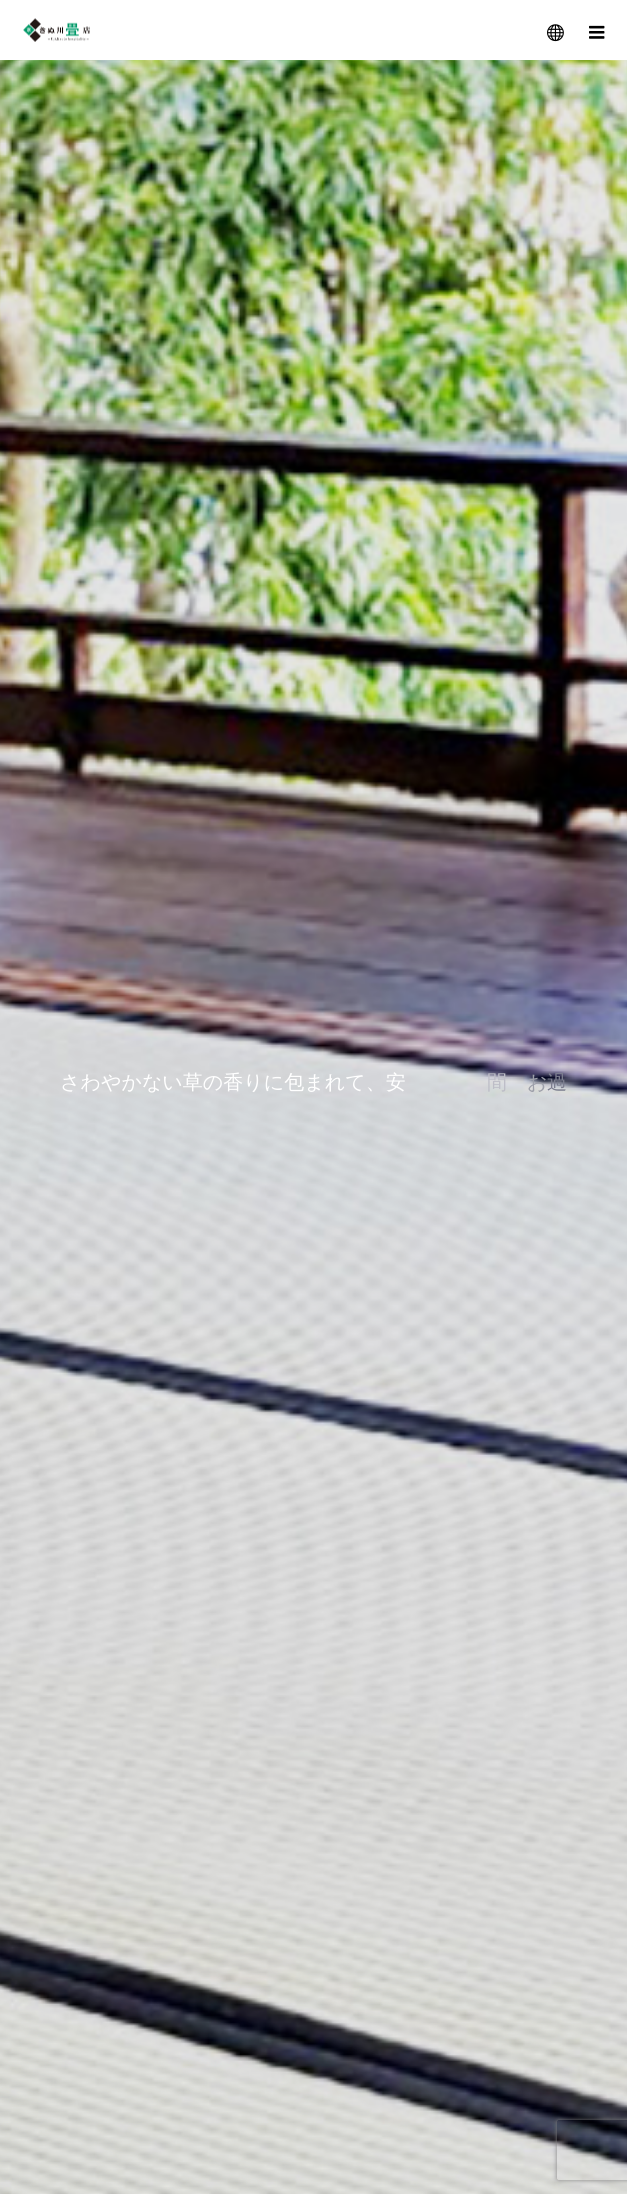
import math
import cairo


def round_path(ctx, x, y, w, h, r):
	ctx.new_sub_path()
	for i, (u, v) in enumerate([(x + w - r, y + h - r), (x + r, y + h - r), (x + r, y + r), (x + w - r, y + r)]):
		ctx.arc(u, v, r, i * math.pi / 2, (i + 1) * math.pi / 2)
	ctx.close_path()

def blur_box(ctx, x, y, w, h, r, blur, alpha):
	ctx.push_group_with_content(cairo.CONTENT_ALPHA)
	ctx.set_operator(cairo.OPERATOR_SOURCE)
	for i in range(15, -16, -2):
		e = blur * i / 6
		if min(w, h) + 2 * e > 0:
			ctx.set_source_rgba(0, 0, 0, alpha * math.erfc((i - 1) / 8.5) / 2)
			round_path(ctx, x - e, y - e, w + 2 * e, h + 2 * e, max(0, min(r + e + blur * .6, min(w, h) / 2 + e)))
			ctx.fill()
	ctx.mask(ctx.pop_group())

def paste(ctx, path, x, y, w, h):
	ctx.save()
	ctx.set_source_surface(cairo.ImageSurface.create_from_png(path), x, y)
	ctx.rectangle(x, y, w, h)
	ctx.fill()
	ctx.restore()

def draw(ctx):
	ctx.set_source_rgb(1, 1, 1)
	ctx.paint()
	paste(ctx, 'media/1.png', 23, 18, 67, 24)
	paste(ctx, 'media/2.png', 547, 24, 17, 18)
	paste(ctx, 'media/3.png', 589, 25, 16, 14)
	paste(ctx, 'media/4.png', 0, 60, 627, 2134)
	ctx.select_font_face('WenQuanYi Zen Hei Medium')
	ctx.set_font_size(20)
	ctx.set_source_rgb(1, 1, 1)
	ctx.move_to(60, 1089)
	ctx.show_text('さわやかない草の香りに包まれて、安')
	ctx.set_source_rgb(0.741, 0.741, 0.78)
	ctx.move_to(487, 1089)
	ctx.show_text('間')
	ctx.set_source_rgb(0.616, 0.624, 0.663)
	ctx.move_to(527, 1089)
	ctx.show_text('お')
	ctx.set_source_rgb(0.482, 0.49, 0.557)
	ctx.move_to(547, 1089)
	ctx.show_text('過')
	ctx.save()
	ctx.set_fill_rule(cairo.FILL_RULE_EVEN_ODD)
	ctx.new_path()
	ctx.move_to(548, 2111)
	ctx.line_to(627, 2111)
	ctx.line_to(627, 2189)
	ctx.line_to(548, 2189)
	ctx.close_path()
	ctx.move_to(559, 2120)
	ctx.line_to(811, 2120)
	ctx.curve_to(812, 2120, 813, 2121, 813, 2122)
	ctx.line_to(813, 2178)
	ctx.curve_to(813, 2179, 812, 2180, 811, 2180)
	ctx.line_to(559, 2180)
	ctx.curve_to(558, 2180, 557, 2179, 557, 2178)
	ctx.line_to(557, 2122)
	ctx.curve_to(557, 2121, 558, 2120, 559, 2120)
	ctx.close_path()
	ctx.clip()
	ctx.set_source_rgb(0.502, 0.502, 0.502)
	blur_box(ctx, 557, 2120, 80, 60, 2, 2.5, 1)
	ctx.restore()


surface = cairo.ImageSurface(cairo.FORMAT_RGB24, 627, 2194)
ctx = cairo.Context(surface)
options = cairo.FontOptions()
options.set_hint_metrics(cairo.HINT_METRICS_OFF)
options.set_hint_style(cairo.HINT_STYLE_NONE)
ctx.set_font_options(options)
ctx.set_miter_limit(4)
draw(ctx)
surface.write_to_png('image.png')
